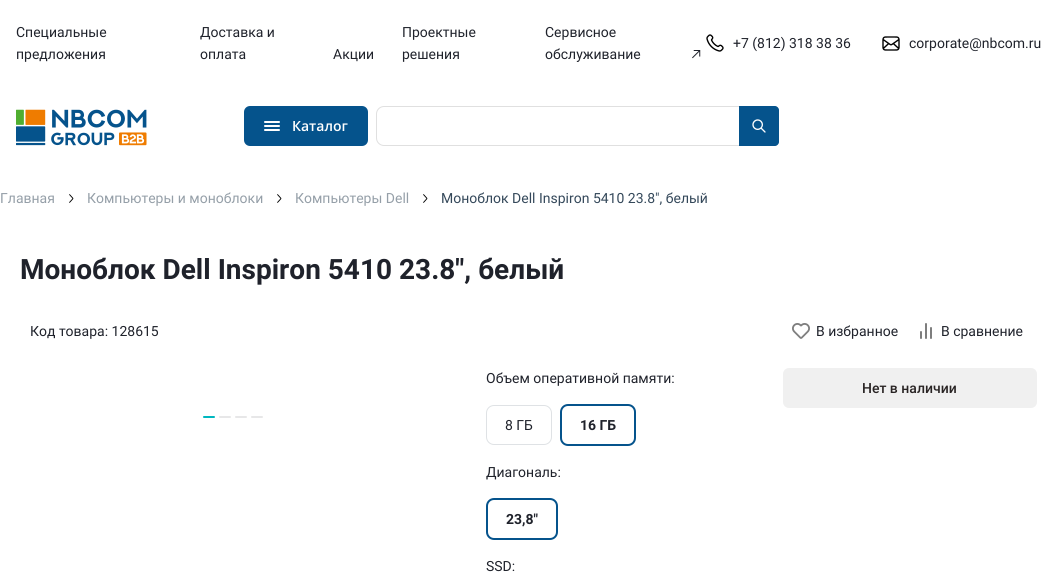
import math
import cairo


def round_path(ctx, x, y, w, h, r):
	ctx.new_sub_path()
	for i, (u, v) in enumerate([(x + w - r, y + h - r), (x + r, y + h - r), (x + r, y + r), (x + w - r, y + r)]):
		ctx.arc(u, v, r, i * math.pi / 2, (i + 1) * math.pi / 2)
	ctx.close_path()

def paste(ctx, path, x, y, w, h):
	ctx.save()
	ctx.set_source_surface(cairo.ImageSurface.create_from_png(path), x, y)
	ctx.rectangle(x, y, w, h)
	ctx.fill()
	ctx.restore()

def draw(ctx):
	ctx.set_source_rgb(1, 1, 1)
	ctx.paint()
	ctx.select_font_face('Roboto')
	ctx.set_font_size(14)
	ctx.set_source_rgb(0.122, 0.133, 0.169)
	for x, y, s in [
		(16, 37, 'Специальные'),
		(16, 59, 'предложения'),
		(200, 37, 'Доставка и'),
		(200, 59, 'оплата'),
		(333, 59, 'Акции'),
		(402, 37, 'Проектные'),
		(402, 59, 'решения'),
		(545, 37, 'Сервисное'),
		(545, 59, 'обслуживание'),
	]:
		ctx.move_to(x, y)
		ctx.show_text(s)
	paste(ctx, 'media/1.png', 692, 50, 9, 9)
	paste(ctx, 'media/2.png', 706, 34, 18, 18)
	ctx.move_to(733, 48)
	ctx.show_text('+7 (812) 318 38 36')
	paste(ctx, 'media/3.png', 882, 36, 18, 15)
	ctx.move_to(909, 48)
	ctx.show_text('corporate@nbcom.ru')
	paste(ctx, 'media/4.png', 16, 109, 131, 37)
	ctx.set_source_rgb(0.02, 0.325, 0.549)
	round_path(ctx, 244, 106, 124, 40, 6)
	ctx.fill()
	ctx.set_source_rgb(1, 1, 1)
	round_path(ctx, 264, 125, 16, 2, 1)
	ctx.fill()
	round_path(ctx, 264, 121, 16, 2, 1)
	ctx.fill()
	round_path(ctx, 264, 129, 16, 2, 1)
	ctx.fill()
	ctx.select_font_face('Open Sans SemiBold')
	ctx.move_to(292, 131)
	ctx.show_text('Каталог')
	round_path(ctx, 376.5, 106.5, 402, 39, 7.5)
	ctx.set_source_rgb(0.878, 0.878, 0.878)
	ctx.set_line_width(1)
	ctx.stroke()
	ctx.set_source_rgb(0.02, 0.325, 0.549)
	ctx.new_path()
	ctx.move_to(739, 106)
	ctx.line_to(775, 106)
	ctx.curve_to(777, 106, 779, 108, 779, 110)
	ctx.line_to(779, 142)
	ctx.curve_to(779, 144, 777, 146, 775, 146)
	ctx.line_to(739, 146)
	ctx.close_path()
	ctx.fill()
	paste(ctx, 'media/5.png', 752, 119, 14, 14)
	ctx.select_font_face('Roboto')
	ctx.set_source_rgb(0.584, 0.624, 0.659)
	ctx.move_to(0, 203)
	ctx.show_text('Главная')
	paste(ctx, 'media/6.png', 69, 194, 5, 9)
	ctx.move_to(87, 203)
	ctx.show_text('Компьютеры и моноблоки')
	paste(ctx, 'media/6.png', 277, 194, 5, 9)
	ctx.move_to(295, 203)
	ctx.show_text('Компьютеры Dell')
	paste(ctx, 'media/6.png', 423, 194, 5, 9)
	ctx.set_source_rgb(0.204, 0.282, 0.353)
	ctx.move_to(441, 203)
	ctx.show_text('Моноблок Dell Inspiron 5410 23.8″, белый')
	ctx.select_font_face('Roboto', cairo.FONT_SLANT_NORMAL, cairo.FONT_WEIGHT_BOLD)
	ctx.set_font_size(28)
	ctx.set_source_rgb(0.122, 0.133, 0.169)
	ctx.move_to(20, 279)
	ctx.show_text('Моноблок Dell Inspiron 5410 23.8″, белый')
	ctx.select_font_face('Roboto')
	ctx.set_font_size(14)
	ctx.move_to(30, 336)
	ctx.show_text('Код товара: 128615')
	paste(ctx, 'media/7.png', 792, 323, 18, 16)
	ctx.move_to(816, 336)
	ctx.show_text('В избранное')
	paste(ctx, 'media/8.png', 920, 323, 12, 16)
	ctx.move_to(941, 336)
	ctx.show_text('В сравнение')
	ctx.move_to(486, 383)
	ctx.show_text('Объем оперативной памяти:')
	round_path(ctx, 486.5, 405.5, 65, 39, 7.5)
	ctx.set_source_rgb(0.875, 0.886, 0.898)
	ctx.stroke()
	ctx.set_source_rgb(0.122, 0.133, 0.169)
	ctx.move_to(505, 430)
	ctx.show_text('8 ГБ')
	round_path(ctx, 561, 405, 74, 40, 7)
	ctx.set_source_rgb(0.02, 0.325, 0.549)
	ctx.set_line_width(2)
	ctx.stroke()
	ctx.select_font_face('Roboto', cairo.FONT_SLANT_NORMAL, cairo.FONT_WEIGHT_BOLD)
	ctx.set_source_rgb(0.122, 0.133, 0.169)
	ctx.move_to(580, 430)
	ctx.show_text('16 ГБ')
	ctx.select_font_face('Roboto')
	ctx.move_to(486, 477)
	ctx.show_text('Диагональ:')
	round_path(ctx, 487, 499, 70, 40, 7)
	ctx.set_source_rgb(0.02, 0.325, 0.549)
	ctx.stroke()
	ctx.select_font_face('Roboto', cairo.FONT_SLANT_NORMAL, cairo.FONT_WEIGHT_BOLD)
	ctx.set_source_rgb(0.122, 0.133, 0.169)
	ctx.move_to(506, 524)
	ctx.show_text('23,8″')
	ctx.select_font_face('Roboto')
	ctx.move_to(486, 571)
	ctx.show_text('SSD:')
	ctx.set_source_rgb(0.941, 0.941, 0.941)
	round_path(ctx, 783, 368, 254, 40, 6)
	ctx.fill()
	ctx.select_font_face('Roboto Medium')
	ctx.set_source_rgb(0.161, 0.141, 0.141)
	ctx.move_to(862, 393)
	ctx.show_text('Нет в наличии')
	ctx.set_source_rgb(0, 0.718, 0.749)
	round_path(ctx, 203, 416, 12, 2, 1)
	ctx.fill()
	ctx.set_source_rgb(0.906, 0.906, 0.91)
	round_path(ctx, 219, 416, 12, 2, 1)
	ctx.fill()
	round_path(ctx, 235, 416, 12, 2, 1)
	ctx.fill()
	round_path(ctx, 251, 416, 12, 2, 1)
	ctx.fill()


surface = cairo.ImageSurface(cairo.FORMAT_RGB24, 1057, 586)
ctx = cairo.Context(surface)
options = cairo.FontOptions()
options.set_hint_metrics(cairo.HINT_METRICS_OFF)
options.set_hint_style(cairo.HINT_STYLE_NONE)
ctx.set_font_options(options)
ctx.set_miter_limit(4)
draw(ctx)
surface.write_to_png('image.png')
